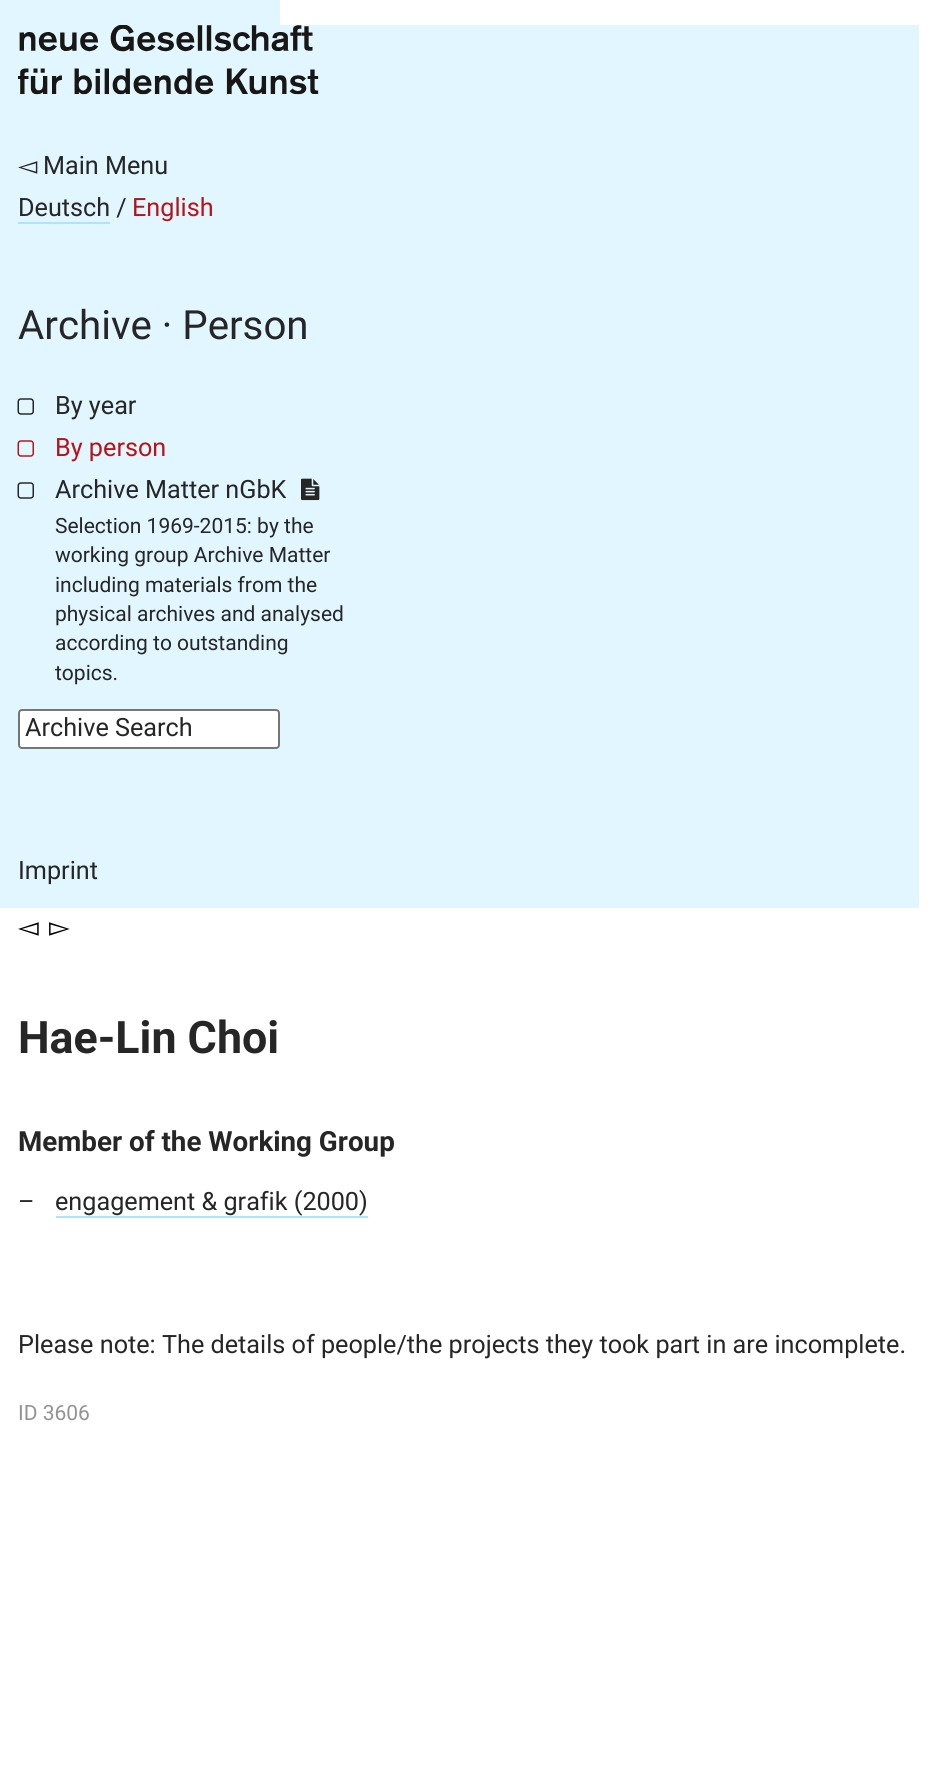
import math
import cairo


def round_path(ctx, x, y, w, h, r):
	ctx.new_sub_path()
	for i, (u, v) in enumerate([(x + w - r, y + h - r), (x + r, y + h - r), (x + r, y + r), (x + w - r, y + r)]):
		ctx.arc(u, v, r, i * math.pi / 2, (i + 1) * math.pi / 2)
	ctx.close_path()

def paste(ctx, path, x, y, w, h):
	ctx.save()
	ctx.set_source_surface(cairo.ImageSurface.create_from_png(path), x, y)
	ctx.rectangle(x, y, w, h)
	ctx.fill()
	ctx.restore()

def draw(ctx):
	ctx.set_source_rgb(1, 1, 1)
	ctx.paint()
	ctx.set_source_rgb(0.882, 0.961, 1)
	ctx.rectangle(0, 0, 280, 908)
	ctx.fill()
	ctx.rectangle(280, 25, 639, 883)
	ctx.fill()
	paste(ctx, 'media/1.png', 18, 25, 301, 70)
	ctx.select_font_face('DejaVu Sans')
	ctx.set_font_size(25.2)
	ctx.set_source_rgb(0.149, 0.149, 0.149)
	ctx.move_to(18, 174)
	ctx.show_text('◅')
	ctx.select_font_face('Roboto')
	ctx.move_to(43, 174)
	ctx.show_text('Main Menu')
	ctx.move_to(18, 216)
	ctx.show_text('Deutsch /')
	ctx.set_source_rgb(0.682, 0.89, 1)
	ctx.rectangle(18, 222, 92, 2)
	ctx.fill()
	ctx.set_source_rgb(0.718, 0.075, 0.094)
	ctx.move_to(132, 216)
	ctx.show_text('English')
	ctx.set_font_size(40.25)
	ctx.set_source_rgb(0.149, 0.149, 0.149)
	ctx.move_to(18, 339)
	ctx.show_text('Archive · Person')
	paste(ctx, 'media/2.png', 17, 398, 17, 17)
	ctx.set_font_size(25.2)
	ctx.move_to(55, 414)
	ctx.show_text('By year')
	paste(ctx, 'media/3.png', 17, 440, 17, 17)
	ctx.set_source_rgb(0.718, 0.075, 0.094)
	ctx.move_to(55, 456)
	ctx.show_text('By person')
	paste(ctx, 'media/2.png', 17, 482, 17, 17)
	ctx.set_source_rgb(0.149, 0.149, 0.149)
	ctx.move_to(55, 498)
	ctx.show_text('Archive Matter nGbK')
	paste(ctx, 'media/4.png', 301, 478, 19, 23)
	ctx.set_font_size(21)
	for x, y, s in [
		(55, 533, 'Selection 1969-2015: by the'),
		(55, 562, 'working group Archive Matter'),
		(55, 592, 'including materials from the'),
		(55, 621, 'physical archives and analysed'),
		(55, 650, 'according to outstanding'),
		(55, 680, 'topics.'),
	]:
		ctx.move_to(x, y)
		ctx.show_text(s)
	ctx.set_source_rgb(1, 1, 1)
	round_path(ctx, 19, 710, 260, 38, 3)
	ctx.fill_preserve()
	ctx.set_source_rgb(0.463, 0.463, 0.463)
	ctx.stroke()
	ctx.set_font_size(25.2)
	ctx.set_source_rgb(0.149, 0.149, 0.149)
	ctx.move_to(25, 736)
	ctx.show_text('Archive Search')
	ctx.move_to(18, 879)
	ctx.show_text('Imprint')
	ctx.select_font_face('DejaVu Sans')
	ctx.set_font_size(27)
	ctx.set_source_rgb(0, 0, 0)
	ctx.move_to(18, 936)
	ctx.show_text('◅')
	ctx.move_to(49, 936)
	ctx.show_text('▻')
	ctx.select_font_face('Roboto', cairo.FONT_SLANT_NORMAL, cairo.FONT_WEIGHT_BOLD)
	ctx.set_font_size(44.75)
	ctx.set_source_rgb(0.149, 0.149, 0.149)
	ctx.move_to(18, 1053)
	ctx.show_text('Hae-Lin Choi')
	ctx.set_font_size(27.75)
	ctx.move_to(18, 1151)
	ctx.show_text('Member of the Working Group')
	ctx.select_font_face('Roboto')
	ctx.set_font_size(25.2)
	ctx.move_to(18, 1210)
	ctx.show_text('–')
	ctx.move_to(55, 1210)
	ctx.show_text('engagement & grafik (2000)')
	ctx.set_source_rgb(0.682, 0.89, 1)
	ctx.rectangle(56, 1216, 312, 2)
	ctx.fill()
	ctx.set_source_rgb(0.149, 0.149, 0.149)
	ctx.move_to(18, 1353)
	ctx.show_text('Please note: The details of people/the projects they took part in are incomplete.')
	ctx.set_font_size(21)
	ctx.set_source_rgb(0.576, 0.576, 0.576)
	ctx.move_to(18, 1420)
	ctx.show_text('ID 3606')


surface = cairo.ImageSurface(cairo.FORMAT_RGB24, 935, 1765)
ctx = cairo.Context(surface)
options = cairo.FontOptions()
options.set_hint_metrics(cairo.HINT_METRICS_OFF)
options.set_hint_style(cairo.HINT_STYLE_NONE)
ctx.set_font_options(options)
ctx.set_miter_limit(4)
draw(ctx)
surface.write_to_png('image.png')
